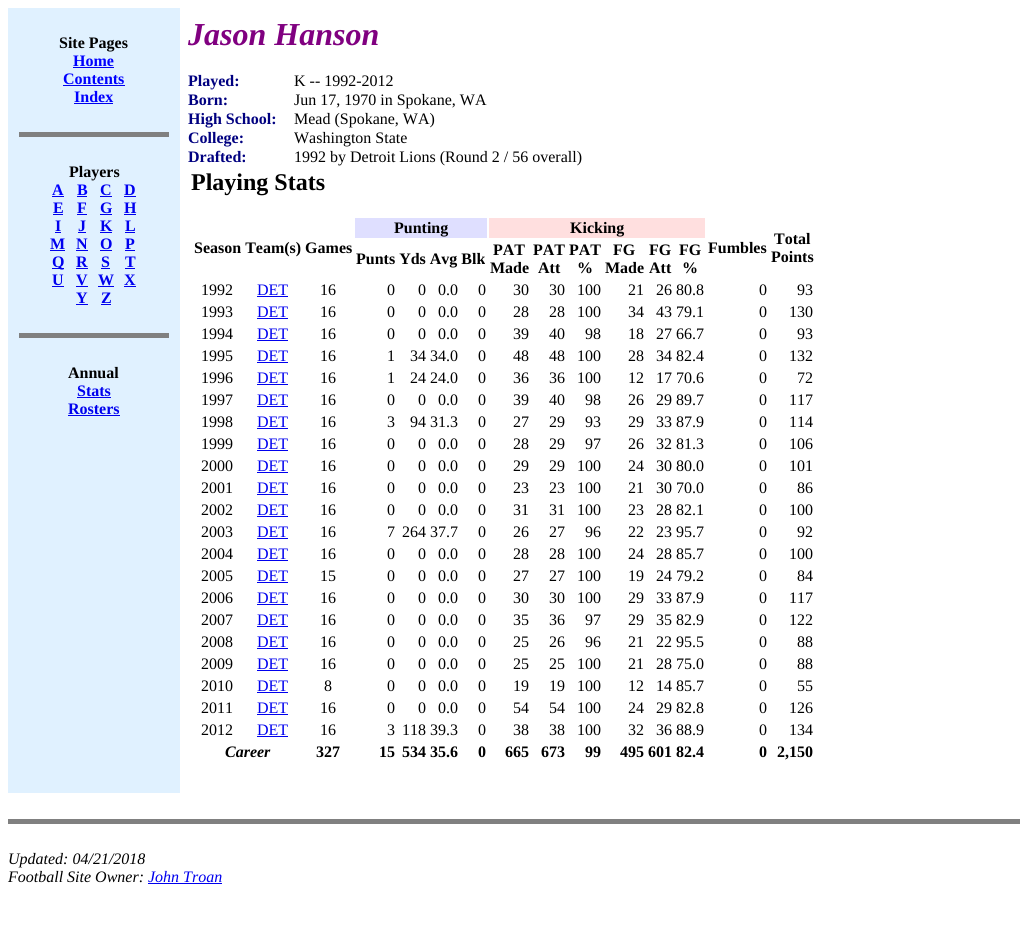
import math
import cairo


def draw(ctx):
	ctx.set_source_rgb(1, 1, 1)
	ctx.paint()
	ctx.set_source_rgb(0.878, 0.945, 1)
	ctx.rectangle(8, 8, 172, 785)
	ctx.fill()
	ctx.select_font_face('Liberation Serif', cairo.FONT_SLANT_NORMAL, cairo.FONT_WEIGHT_BOLD)
	ctx.set_font_size(16)
	ctx.set_source_rgb(0, 0, 0)
	ctx.move_to(59, 48)
	ctx.show_text('Site Pages')
	ctx.set_source_rgb(0, 0, 1)
	ctx.move_to(73, 66)
	ctx.show_text('Home')
	ctx.set_source_rgb(0, 0, 0.933)
	ctx.rectangle(73, 67, 41, 1)
	ctx.fill()
	ctx.set_source_rgb(0, 0, 1)
	ctx.move_to(63, 84)
	ctx.show_text('Contents')
	ctx.set_source_rgb(0, 0, 0.933)
	ctx.rectangle(63, 85, 62, 1)
	ctx.fill()
	ctx.set_source_rgb(0, 0, 1)
	ctx.move_to(74, 102)
	ctx.show_text('Index')
	ctx.set_source_rgb(0, 0, 0.933)
	ctx.rectangle(74, 103, 39, 1)
	ctx.fill()
	ctx.set_source_rgb(0.502, 0.502, 0.502)
	ctx.rectangle(19, 132, 150, 5)
	ctx.fill()
	ctx.set_source_rgb(0, 0, 0)
	ctx.move_to(69, 177)
	ctx.show_text('Players')
	ctx.set_source_rgb(0, 0, 1)
	ctx.move_to(52, 195)
	ctx.show_text('A')
	ctx.set_source_rgb(0, 0, 0.933)
	ctx.rectangle(52, 196, 12, 1)
	ctx.fill()
	ctx.set_source_rgb(0, 0, 1)
	ctx.move_to(77, 195)
	ctx.show_text('B')
	ctx.set_source_rgb(0, 0, 0.933)
	ctx.rectangle(77, 196, 10, 1)
	ctx.fill()
	ctx.move_to(100, 195)
	ctx.show_text('C')
	ctx.rectangle(100, 196, 12, 1)
	ctx.fill()
	ctx.move_to(124, 195)
	ctx.show_text('D')
	ctx.rectangle(124, 196, 12, 1)
	ctx.fill()
	ctx.move_to(53, 213)
	ctx.show_text('E')
	ctx.rectangle(53, 214, 10, 1)
	ctx.fill()
	ctx.move_to(77, 213)
	ctx.show_text('F')
	ctx.rectangle(77, 214, 10, 1)
	ctx.fill()
	ctx.move_to(100, 213)
	ctx.show_text('G')
	ctx.rectangle(100, 214, 12, 1)
	ctx.fill()
	ctx.move_to(124, 213)
	ctx.show_text('H')
	ctx.rectangle(124, 214, 12, 1)
	ctx.fill()
	ctx.move_to(55, 231)
	ctx.show_text('I')
	ctx.rectangle(55, 232, 6, 1)
	ctx.fill()
	ctx.move_to(78, 231)
	ctx.show_text('J')
	ctx.rectangle(78, 232, 8, 1)
	ctx.fill()
	ctx.move_to(100, 231)
	ctx.show_text('K')
	ctx.rectangle(100, 232, 12, 1)
	ctx.fill()
	ctx.move_to(125, 231)
	ctx.show_text('L')
	ctx.rectangle(125, 232, 10, 1)
	ctx.fill()
	ctx.move_to(50, 249)
	ctx.show_text('M')
	ctx.rectangle(50, 250, 15, 1)
	ctx.fill()
	ctx.move_to(76, 249)
	ctx.show_text('N')
	ctx.rectangle(76, 250, 12, 1)
	ctx.fill()
	ctx.move_to(100, 249)
	ctx.show_text('O')
	ctx.rectangle(100, 250, 12, 1)
	ctx.fill()
	ctx.move_to(125, 249)
	ctx.show_text('P')
	ctx.rectangle(125, 250, 10, 1)
	ctx.fill()
	ctx.rectangle(52, 268, 12, 1)
	ctx.fill()
	ctx.move_to(52, 267)
	ctx.show_text('Q')
	ctx.move_to(76, 267)
	ctx.show_text('R')
	ctx.rectangle(76, 268, 12, 1)
	ctx.fill()
	ctx.move_to(101, 267)
	ctx.show_text('S')
	ctx.rectangle(101, 268, 9, 1)
	ctx.fill()
	ctx.move_to(125, 267)
	ctx.show_text('T')
	ctx.rectangle(125, 268, 10, 1)
	ctx.fill()
	ctx.move_to(52, 285)
	ctx.show_text('U')
	ctx.rectangle(52, 286, 12, 1)
	ctx.fill()
	ctx.move_to(76, 285)
	ctx.show_text('V')
	ctx.rectangle(76, 286, 12, 1)
	ctx.fill()
	ctx.move_to(98, 285)
	ctx.show_text('W')
	ctx.rectangle(98, 286, 16, 1)
	ctx.fill()
	ctx.move_to(124, 285)
	ctx.show_text('X')
	ctx.rectangle(124, 286, 12, 1)
	ctx.fill()
	ctx.move_to(76, 303)
	ctx.show_text('Y')
	ctx.rectangle(76, 304, 12, 1)
	ctx.fill()
	ctx.move_to(101, 303)
	ctx.show_text('Z')
	ctx.rectangle(101, 304, 10, 1)
	ctx.fill()
	ctx.set_source_rgb(0.502, 0.502, 0.502)
	ctx.rectangle(19, 333, 150, 5)
	ctx.fill()
	ctx.set_source_rgb(0, 0, 0)
	ctx.move_to(68, 378)
	ctx.show_text('Annual')
	ctx.set_source_rgb(0, 0, 0.933)
	ctx.move_to(77, 396)
	ctx.show_text('Stats')
	ctx.rectangle(77, 397, 34, 1)
	ctx.fill()
	ctx.move_to(68, 414)
	ctx.show_text('Rosters')
	ctx.rectangle(68, 415, 52, 1)
	ctx.fill()
	ctx.select_font_face('Liberation Serif', cairo.FONT_SLANT_ITALIC, cairo.FONT_WEIGHT_BOLD)
	ctx.set_font_size(32)
	ctx.set_source_rgb(0.502, 0, 0.502)
	ctx.move_to(188, 45)
	ctx.show_text('Jason Hanson')
	ctx.select_font_face('Liberation Serif', cairo.FONT_SLANT_NORMAL, cairo.FONT_WEIGHT_BOLD)
	ctx.set_font_size(16)
	ctx.set_source_rgb(0, 0, 0.502)
	ctx.move_to(188, 86)
	ctx.show_text('Played:')
	ctx.select_font_face('Liberation Serif')
	ctx.set_source_rgb(0, 0, 0)
	ctx.move_to(294, 86)
	ctx.show_text('K -- 1992-2012')
	ctx.select_font_face('Liberation Serif', cairo.FONT_SLANT_NORMAL, cairo.FONT_WEIGHT_BOLD)
	ctx.set_source_rgb(0, 0, 0.502)
	ctx.move_to(188, 105)
	ctx.show_text('Born:')
	ctx.select_font_face('Liberation Serif')
	ctx.set_source_rgb(0, 0, 0)
	ctx.move_to(294, 105)
	ctx.show_text('Jun 17, 1970 in Spokane, WA')
	ctx.select_font_face('Liberation Serif', cairo.FONT_SLANT_NORMAL, cairo.FONT_WEIGHT_BOLD)
	ctx.set_source_rgb(0, 0, 0.502)
	ctx.move_to(188, 124)
	ctx.show_text('High School:')
	ctx.select_font_face('Liberation Serif')
	ctx.set_source_rgb(0, 0, 0)
	ctx.move_to(294, 124)
	ctx.show_text('Mead (Spokane, WA)')
	ctx.select_font_face('Liberation Serif', cairo.FONT_SLANT_NORMAL, cairo.FONT_WEIGHT_BOLD)
	ctx.set_source_rgb(0, 0, 0.502)
	ctx.move_to(188, 143)
	ctx.show_text('College:')
	ctx.select_font_face('Liberation Serif')
	ctx.set_source_rgb(0, 0, 0)
	ctx.move_to(294, 143)
	ctx.show_text('Washington State')
	ctx.select_font_face('Liberation Serif', cairo.FONT_SLANT_NORMAL, cairo.FONT_WEIGHT_BOLD)
	ctx.set_source_rgb(0, 0, 0.502)
	ctx.move_to(188, 162)
	ctx.show_text('Drafted:')
	ctx.select_font_face('Liberation Serif')
	ctx.set_source_rgb(0, 0, 0)
	ctx.move_to(294, 162)
	ctx.show_text('1992 by Detroit Lions (Round 2 / 56 overall)')
	ctx.select_font_face('Liberation Serif', cairo.FONT_SLANT_NORMAL, cairo.FONT_WEIGHT_BOLD)
	ctx.set_font_size(24)
	ctx.move_to(191, 190)
	ctx.show_text('Playing Stats')
	ctx.set_source_rgb(0.875, 0.875, 1)
	ctx.rectangle(355, 218, 132, 20)
	ctx.fill()
	ctx.set_font_size(16)
	ctx.set_source_rgb(0, 0, 0)
	ctx.move_to(394, 233)
	ctx.show_text('Punting')
	ctx.set_source_rgb(1, 0.875, 0.875)
	ctx.rectangle(489, 218, 216, 20)
	ctx.fill()
	ctx.set_source_rgb(0, 0, 0)
	for x, y, s in [
		(570, 233, 'Kicking'),
		(194, 253, 'Season Team(s) Games'),
		(708, 253, 'Fumbles'),
		(774, 244, 'Total'),
		(771, 262, 'Points'),
		(356, 264, 'Punts Yds Avg Blk'),
		(493, 255, 'PAT'),
		(490, 273, 'Made'),
		(533, 255, 'PAT PAT'),
		(538, 273, 'Att'),
		(613, 255, 'FG'),
		(605, 273, 'Made'),
		(649, 255, 'FG'),
		(649, 273, 'Att'),
		(679, 255, 'FG'),
		(682, 273, '%'),
		(577, 273, '%'),
	]:
		ctx.move_to(x, y)
		ctx.show_text(s)
	ctx.select_font_face('Liberation Serif')
	ctx.move_to(201, 295)
	ctx.show_text('1992')
	ctx.set_source_rgb(0, 0, 0.933)
	ctx.move_to(257, 295)
	ctx.show_text('DET')
	ctx.rectangle(257, 296, 31, 1)
	ctx.fill()
	ctx.set_source_rgb(0, 0, 0)
	for x, y, s in [
		(320, 295, '16'),
		(387, 295, '0'),
		(418, 295, '0'),
		(438, 295, '0.0'),
		(478, 295, '0'),
		(513, 295, '30'),
		(549, 295, '30'),
		(577, 295, '100'),
		(628, 295, '21'),
		(656, 295, '26 80.8'),
		(759, 295, '0'),
		(797, 295, '93'),
		(201, 317, '1993'),
	]:
		ctx.move_to(x, y)
		ctx.show_text(s)
	ctx.set_source_rgb(0, 0, 0.933)
	ctx.move_to(257, 317)
	ctx.show_text('DET')
	ctx.rectangle(257, 318, 31, 1)
	ctx.fill()
	ctx.set_source_rgb(0, 0, 0)
	for x, y, s in [
		(320, 317, '16'),
		(387, 317, '0'),
		(418, 317, '0'),
		(438, 317, '0.0'),
		(478, 317, '0'),
		(513, 317, '28'),
		(549, 317, '28'),
		(577, 317, '100'),
		(628, 317, '34'),
		(656, 317, '43 79.1'),
		(759, 317, '0'),
		(789, 317, '130'),
		(201, 339, '1994'),
	]:
		ctx.move_to(x, y)
		ctx.show_text(s)
	ctx.set_source_rgb(0, 0, 0.933)
	ctx.move_to(257, 339)
	ctx.show_text('DET')
	ctx.rectangle(257, 340, 31, 1)
	ctx.fill()
	ctx.set_source_rgb(0, 0, 0)
	for x, y, s in [
		(320, 339, '16'),
		(387, 339, '0'),
		(418, 339, '0'),
		(438, 339, '0.0'),
		(478, 339, '0'),
		(513, 339, '39'),
		(549, 339, '40'),
		(585, 339, '98'),
		(628, 339, '18'),
		(656, 339, '27 66.7'),
		(759, 339, '0'),
		(797, 339, '93'),
		(201, 361, '1995'),
	]:
		ctx.move_to(x, y)
		ctx.show_text(s)
	ctx.set_source_rgb(0, 0, 0.933)
	ctx.move_to(257, 361)
	ctx.show_text('DET')
	ctx.rectangle(257, 362, 31, 1)
	ctx.fill()
	ctx.set_source_rgb(0, 0, 0)
	for x, y, s in [
		(320, 361, '16'),
		(387, 361, '1'),
		(410, 361, '34 34.0'),
		(478, 361, '0'),
		(513, 361, '48'),
		(549, 361, '48'),
		(577, 361, '100'),
		(628, 361, '28'),
		(656, 361, '34 82.4'),
		(759, 361, '0'),
		(789, 361, '132'),
		(201, 383, '1996'),
	]:
		ctx.move_to(x, y)
		ctx.show_text(s)
	ctx.set_source_rgb(0, 0, 0.933)
	ctx.move_to(257, 383)
	ctx.show_text('DET')
	ctx.rectangle(257, 384, 31, 1)
	ctx.fill()
	ctx.set_source_rgb(0, 0, 0)
	for x, y, s in [
		(320, 383, '16'),
		(387, 383, '1'),
		(410, 383, '24 24.0'),
		(478, 383, '0'),
		(513, 383, '36'),
		(549, 383, '36'),
		(577, 383, '100'),
		(628, 383, '12'),
		(656, 383, '17 70.6'),
		(759, 383, '0'),
		(797, 383, '72'),
		(201, 405, '1997'),
	]:
		ctx.move_to(x, y)
		ctx.show_text(s)
	ctx.set_source_rgb(0, 0, 0.933)
	ctx.move_to(257, 405)
	ctx.show_text('DET')
	ctx.rectangle(257, 406, 31, 1)
	ctx.fill()
	ctx.set_source_rgb(0, 0, 0)
	for x, y, s in [
		(320, 405, '16'),
		(387, 405, '0'),
		(418, 405, '0'),
		(438, 405, '0.0'),
		(478, 405, '0'),
		(513, 405, '39'),
		(549, 405, '40'),
		(585, 405, '98'),
		(628, 405, '26'),
		(656, 405, '29 89.7'),
		(759, 405, '0'),
		(789, 405, '117'),
		(201, 427, '1998'),
	]:
		ctx.move_to(x, y)
		ctx.show_text(s)
	ctx.set_source_rgb(0, 0, 0.933)
	ctx.move_to(257, 427)
	ctx.show_text('DET')
	ctx.rectangle(257, 428, 31, 1)
	ctx.fill()
	ctx.set_source_rgb(0, 0, 0)
	for x, y, s in [
		(320, 427, '16'),
		(387, 427, '3'),
		(410, 427, '94 31.3'),
		(478, 427, '0'),
		(513, 427, '27'),
		(549, 427, '29'),
		(585, 427, '93'),
		(628, 427, '29'),
		(656, 427, '33 87.9'),
		(759, 427, '0'),
		(789, 427, '114'),
		(201, 449, '1999'),
	]:
		ctx.move_to(x, y)
		ctx.show_text(s)
	ctx.set_source_rgb(0, 0, 0.933)
	ctx.move_to(257, 449)
	ctx.show_text('DET')
	ctx.rectangle(257, 450, 31, 1)
	ctx.fill()
	ctx.set_source_rgb(0, 0, 0)
	for x, y, s in [
		(320, 449, '16'),
		(387, 449, '0'),
		(418, 449, '0'),
		(438, 449, '0.0'),
		(478, 449, '0'),
		(513, 449, '28'),
		(549, 449, '29'),
		(585, 449, '97'),
		(628, 449, '26'),
		(656, 449, '32 81.3'),
		(759, 449, '0'),
		(789, 449, '106'),
		(201, 471, '2000'),
	]:
		ctx.move_to(x, y)
		ctx.show_text(s)
	ctx.set_source_rgb(0, 0, 0.933)
	ctx.move_to(257, 471)
	ctx.show_text('DET')
	ctx.rectangle(257, 472, 31, 1)
	ctx.fill()
	ctx.set_source_rgb(0, 0, 0)
	for x, y, s in [
		(320, 471, '16'),
		(387, 471, '0'),
		(418, 471, '0'),
		(438, 471, '0.0'),
		(478, 471, '0'),
		(513, 471, '29'),
		(549, 471, '29'),
		(577, 471, '100'),
		(628, 471, '24'),
		(656, 471, '30 80.0'),
		(759, 471, '0'),
		(789, 471, '101'),
		(201, 493, '2001'),
	]:
		ctx.move_to(x, y)
		ctx.show_text(s)
	ctx.set_source_rgb(0, 0, 0.933)
	ctx.move_to(257, 493)
	ctx.show_text('DET')
	ctx.rectangle(257, 494, 31, 1)
	ctx.fill()
	ctx.set_source_rgb(0, 0, 0)
	for x, y, s in [
		(320, 493, '16'),
		(387, 493, '0'),
		(418, 493, '0'),
		(438, 493, '0.0'),
		(478, 493, '0'),
		(513, 493, '23'),
		(549, 493, '23'),
		(577, 493, '100'),
		(628, 493, '21'),
		(656, 493, '30 70.0'),
		(759, 493, '0'),
		(797, 493, '86'),
		(201, 515, '2002'),
	]:
		ctx.move_to(x, y)
		ctx.show_text(s)
	ctx.set_source_rgb(0, 0, 0.933)
	ctx.move_to(257, 515)
	ctx.show_text('DET')
	ctx.rectangle(257, 516, 31, 1)
	ctx.fill()
	ctx.set_source_rgb(0, 0, 0)
	for x, y, s in [
		(320, 515, '16'),
		(387, 515, '0'),
		(418, 515, '0'),
		(438, 515, '0.0'),
		(478, 515, '0'),
		(513, 515, '31'),
		(549, 515, '31'),
		(577, 515, '100'),
		(628, 515, '23'),
		(656, 515, '28 82.1'),
		(759, 515, '0'),
		(789, 515, '100'),
		(201, 537, '2003'),
	]:
		ctx.move_to(x, y)
		ctx.show_text(s)
	ctx.set_source_rgb(0, 0, 0.933)
	ctx.move_to(257, 537)
	ctx.show_text('DET')
	ctx.rectangle(257, 538, 31, 1)
	ctx.fill()
	ctx.set_source_rgb(0, 0, 0)
	for x, y, s in [
		(320, 537, '16'),
		(387, 537, '7'),
		(402, 537, '264 37.7'),
		(478, 537, '0'),
		(513, 537, '26'),
		(549, 537, '27'),
		(585, 537, '96'),
		(628, 537, '22'),
		(656, 537, '23 95.7'),
		(759, 537, '0'),
		(797, 537, '92'),
		(201, 559, '2004'),
	]:
		ctx.move_to(x, y)
		ctx.show_text(s)
	ctx.set_source_rgb(0, 0, 0.933)
	ctx.move_to(257, 559)
	ctx.show_text('DET')
	ctx.rectangle(257, 560, 31, 1)
	ctx.fill()
	ctx.set_source_rgb(0, 0, 0)
	for x, y, s in [
		(320, 559, '16'),
		(387, 559, '0'),
		(418, 559, '0'),
		(438, 559, '0.0'),
		(478, 559, '0'),
		(513, 559, '28'),
		(549, 559, '28'),
		(577, 559, '100'),
		(628, 559, '24'),
		(656, 559, '28 85.7'),
		(759, 559, '0'),
		(789, 559, '100'),
		(201, 581, '2005'),
	]:
		ctx.move_to(x, y)
		ctx.show_text(s)
	ctx.set_source_rgb(0, 0, 0.933)
	ctx.move_to(257, 581)
	ctx.show_text('DET')
	ctx.rectangle(257, 582, 31, 1)
	ctx.fill()
	ctx.set_source_rgb(0, 0, 0)
	for x, y, s in [
		(320, 581, '15'),
		(387, 581, '0'),
		(418, 581, '0'),
		(438, 581, '0.0'),
		(478, 581, '0'),
		(513, 581, '27'),
		(549, 581, '27'),
		(577, 581, '100'),
		(628, 581, '19'),
		(656, 581, '24 79.2'),
		(759, 581, '0'),
		(797, 581, '84'),
		(201, 603, '2006'),
	]:
		ctx.move_to(x, y)
		ctx.show_text(s)
	ctx.set_source_rgb(0, 0, 0.933)
	ctx.move_to(257, 603)
	ctx.show_text('DET')
	ctx.rectangle(257, 604, 31, 1)
	ctx.fill()
	ctx.set_source_rgb(0, 0, 0)
	for x, y, s in [
		(320, 603, '16'),
		(387, 603, '0'),
		(418, 603, '0'),
		(438, 603, '0.0'),
		(478, 603, '0'),
		(513, 603, '30'),
		(549, 603, '30'),
		(577, 603, '100'),
		(628, 603, '29'),
		(656, 603, '33 87.9'),
		(759, 603, '0'),
		(789, 603, '117'),
		(201, 625, '2007'),
	]:
		ctx.move_to(x, y)
		ctx.show_text(s)
	ctx.set_source_rgb(0, 0, 0.933)
	ctx.move_to(257, 625)
	ctx.show_text('DET')
	ctx.rectangle(257, 626, 31, 1)
	ctx.fill()
	ctx.set_source_rgb(0, 0, 0)
	for x, y, s in [
		(320, 625, '16'),
		(387, 625, '0'),
		(418, 625, '0'),
		(438, 625, '0.0'),
		(478, 625, '0'),
		(513, 625, '35'),
		(549, 625, '36'),
		(585, 625, '97'),
		(628, 625, '29'),
		(656, 625, '35 82.9'),
		(759, 625, '0'),
		(789, 625, '122'),
		(201, 647, '2008'),
	]:
		ctx.move_to(x, y)
		ctx.show_text(s)
	ctx.set_source_rgb(0, 0, 0.933)
	ctx.move_to(257, 647)
	ctx.show_text('DET')
	ctx.rectangle(257, 648, 31, 1)
	ctx.fill()
	ctx.set_source_rgb(0, 0, 0)
	for x, y, s in [
		(320, 647, '16'),
		(387, 647, '0'),
		(418, 647, '0'),
		(438, 647, '0.0'),
		(478, 647, '0'),
		(513, 647, '25'),
		(549, 647, '26'),
		(585, 647, '96'),
		(628, 647, '21'),
		(656, 647, '22 95.5'),
		(759, 647, '0'),
		(797, 647, '88'),
		(201, 669, '2009'),
	]:
		ctx.move_to(x, y)
		ctx.show_text(s)
	ctx.set_source_rgb(0, 0, 0.933)
	ctx.move_to(257, 669)
	ctx.show_text('DET')
	ctx.rectangle(257, 670, 31, 1)
	ctx.fill()
	ctx.set_source_rgb(0, 0, 0)
	for x, y, s in [
		(320, 669, '16'),
		(387, 669, '0'),
		(418, 669, '0'),
		(438, 669, '0.0'),
		(478, 669, '0'),
		(513, 669, '25'),
		(549, 669, '25'),
		(577, 669, '100'),
		(628, 669, '21'),
		(656, 669, '28 75.0'),
		(759, 669, '0'),
		(797, 669, '88'),
		(201, 691, '2010'),
	]:
		ctx.move_to(x, y)
		ctx.show_text(s)
	ctx.set_source_rgb(0, 0, 0.933)
	ctx.move_to(257, 691)
	ctx.show_text('DET')
	ctx.rectangle(257, 692, 31, 1)
	ctx.fill()
	ctx.set_source_rgb(0, 0, 0)
	for x, y, s in [
		(324, 691, '8'),
		(387, 691, '0'),
		(418, 691, '0'),
		(438, 691, '0.0'),
		(478, 691, '0'),
		(513, 691, '19'),
		(549, 691, '19'),
		(577, 691, '100'),
		(628, 691, '12'),
		(656, 691, '14 85.7'),
		(759, 691, '0'),
		(797, 691, '55'),
		(201, 713, '2011'),
	]:
		ctx.move_to(x, y)
		ctx.show_text(s)
	ctx.set_source_rgb(0, 0, 0.933)
	ctx.move_to(257, 713)
	ctx.show_text('DET')
	ctx.rectangle(257, 714, 31, 1)
	ctx.fill()
	ctx.set_source_rgb(0, 0, 0)
	for x, y, s in [
		(320, 713, '16'),
		(387, 713, '0'),
		(418, 713, '0'),
		(438, 713, '0.0'),
		(478, 713, '0'),
		(513, 713, '54'),
		(549, 713, '54'),
		(577, 713, '100'),
		(628, 713, '24'),
		(656, 713, '29 82.8'),
		(759, 713, '0'),
		(789, 713, '126'),
		(201, 735, '2012'),
	]:
		ctx.move_to(x, y)
		ctx.show_text(s)
	ctx.set_source_rgb(0, 0, 0.933)
	ctx.move_to(257, 735)
	ctx.show_text('DET')
	ctx.rectangle(257, 736, 31, 1)
	ctx.fill()
	ctx.set_source_rgb(0, 0, 0)
	for x, y, s in [
		(320, 735, '16'),
		(387, 735, '3'),
		(402, 735, '118 39.3'),
		(478, 735, '0'),
		(513, 735, '38'),
		(549, 735, '38'),
		(577, 735, '100'),
		(628, 735, '32'),
		(656, 735, '36 88.9'),
		(759, 735, '0'),
		(789, 735, '134'),
	]:
		ctx.move_to(x, y)
		ctx.show_text(s)
	ctx.select_font_face('Liberation Serif', cairo.FONT_SLANT_ITALIC, cairo.FONT_WEIGHT_BOLD)
	ctx.move_to(225, 757)
	ctx.show_text('Career')
	ctx.select_font_face('Liberation Serif', cairo.FONT_SLANT_NORMAL, cairo.FONT_WEIGHT_BOLD)
	for x, y, s in [
		(316, 757, '327'),
		(379, 757, '15'),
		(402, 757, '534 35.6'),
		(478, 757, '0'),
		(505, 757, '665'),
		(541, 757, '673'),
		(585, 757, '99'),
		(620, 757, '495 601 82.4'),
		(759, 757, '0'),
		(777, 757, '2,150'),
	]:
		ctx.move_to(x, y)
		ctx.show_text(s)
	ctx.set_source_rgb(0.502, 0.502, 0.502)
	ctx.rectangle(8, 819, 1012, 5)
	ctx.fill()
	ctx.select_font_face('Liberation Serif', cairo.FONT_SLANT_ITALIC)
	ctx.set_source_rgb(0, 0, 0)
	ctx.move_to(8, 864)
	ctx.show_text('Updated: 04/21/2018')
	ctx.move_to(8, 882)
	ctx.show_text('Football Site Owner:')
	ctx.set_source_rgb(0, 0, 0.933)
	ctx.move_to(148, 882)
	ctx.show_text('John Troan')
	ctx.rectangle(148, 883, 74, 1)
	ctx.fill()


surface = cairo.ImageSurface(cairo.FORMAT_RGB24, 1026, 928)
ctx = cairo.Context(surface)
options = cairo.FontOptions()
options.set_hint_metrics(cairo.HINT_METRICS_OFF)
options.set_hint_style(cairo.HINT_STYLE_NONE)
ctx.set_font_options(options)
ctx.set_miter_limit(4)
draw(ctx)
surface.write_to_png('image.png')
